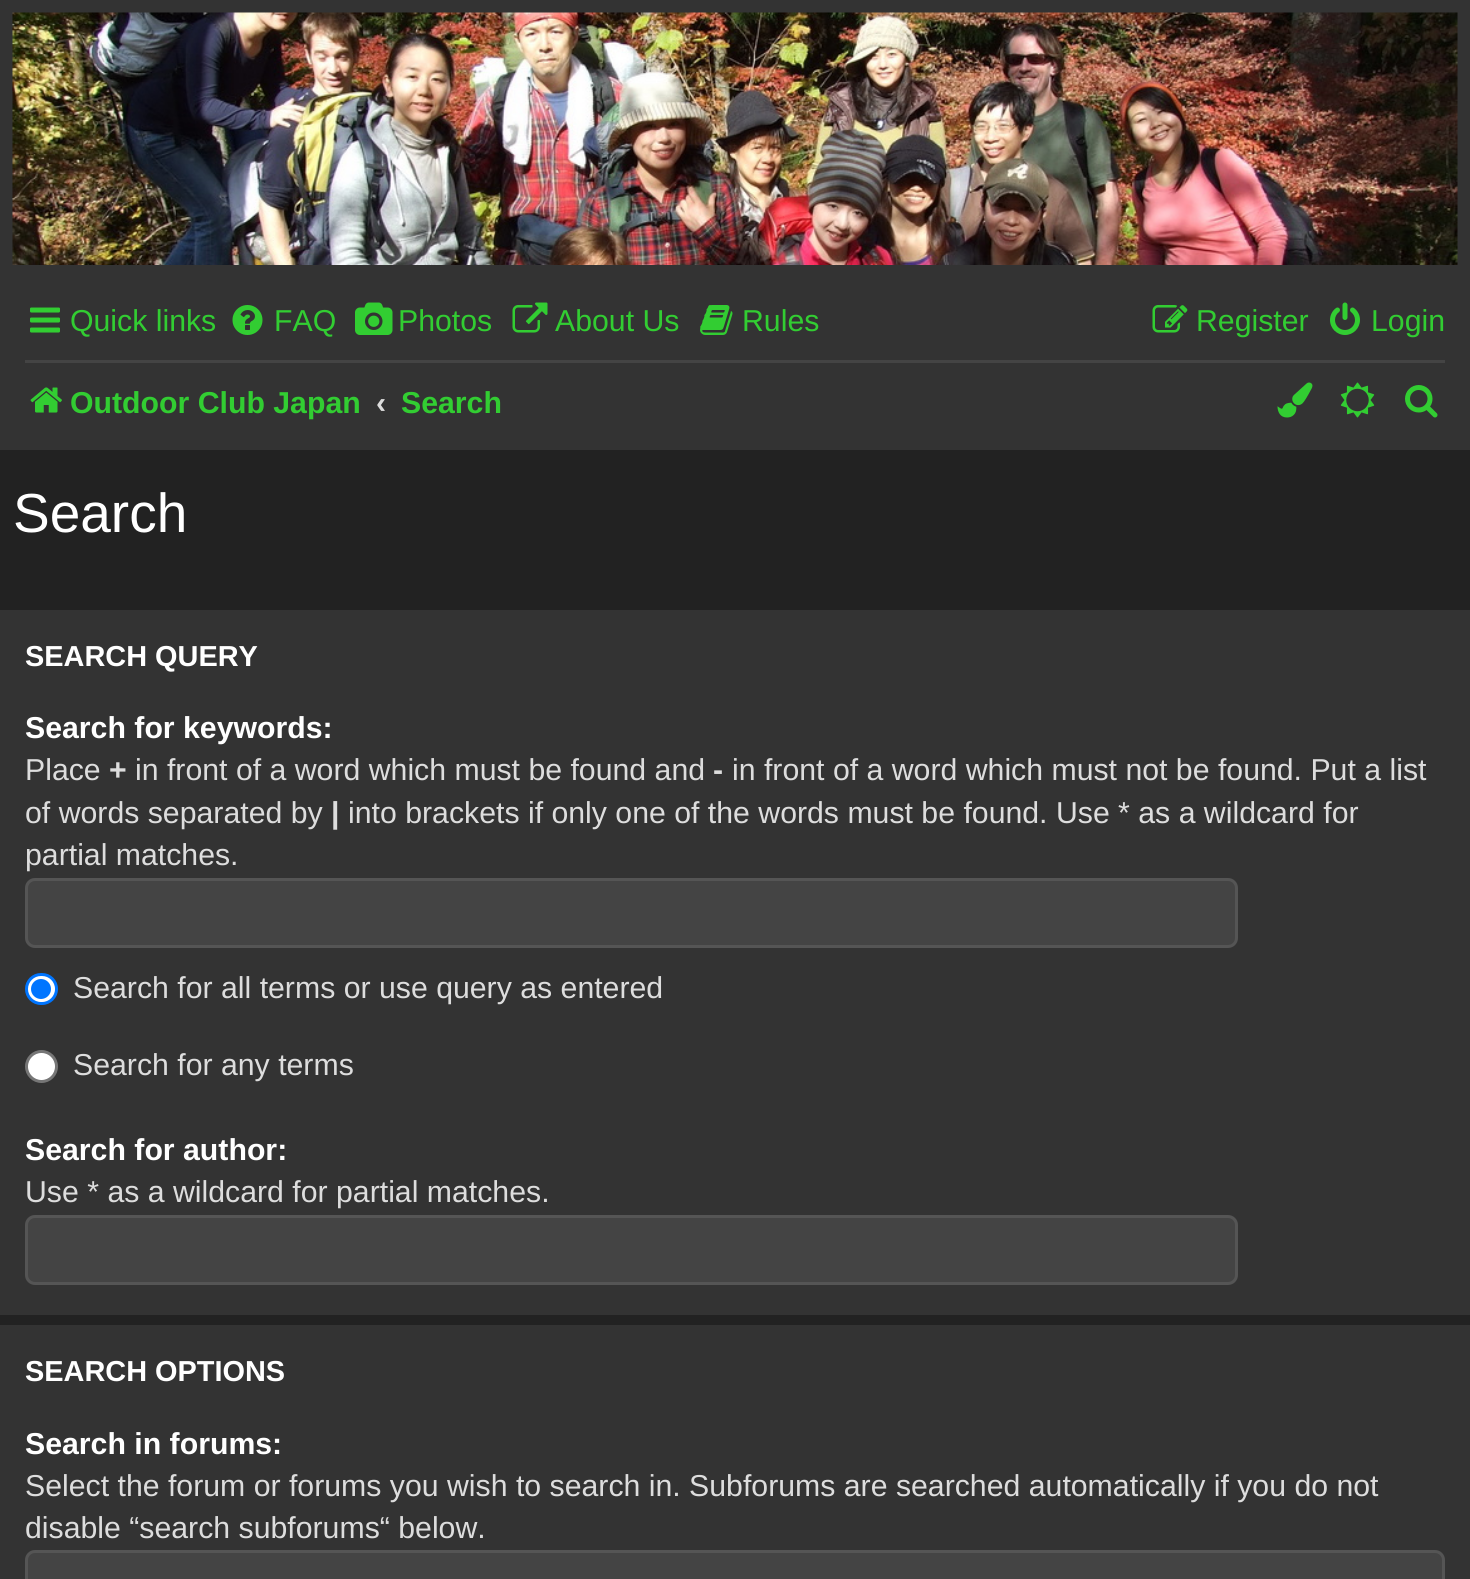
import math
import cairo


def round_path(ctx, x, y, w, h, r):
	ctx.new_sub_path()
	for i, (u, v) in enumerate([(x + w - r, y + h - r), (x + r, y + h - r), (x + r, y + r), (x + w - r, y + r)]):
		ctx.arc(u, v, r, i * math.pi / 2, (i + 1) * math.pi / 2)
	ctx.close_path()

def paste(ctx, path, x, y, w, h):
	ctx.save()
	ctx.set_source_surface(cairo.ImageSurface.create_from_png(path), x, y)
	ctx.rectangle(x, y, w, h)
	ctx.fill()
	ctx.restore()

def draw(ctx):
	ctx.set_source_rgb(0.133, 0.133, 0.133)
	ctx.paint()
	ctx.set_source_rgb(0.2, 0.2, 0.2)
	ctx.rectangle(0, 0, 1470, 450)
	ctx.fill()
	paste(ctx, 'media/1.png', 12, 12, 1446, 253)
	paste(ctx, 'media/2.png', 30, 307, 30, 26)
	ctx.select_font_face('Liberation Sans')
	ctx.set_font_size(30.25)
	ctx.set_source_rgb(0.196, 0.804, 0.196)
	ctx.move_to(70, 331)
	ctx.show_text('Quick links')
	paste(ctx, 'media/3.png', 232, 305, 31, 30)
	ctx.move_to(274, 331)
	ctx.show_text('FAQ')
	paste(ctx, 'media/4.png', 355, 302, 38, 33)
	ctx.move_to(398, 331)
	ctx.show_text('Photos')
	paste(ctx, 'media/5.png', 512, 302, 36, 31)
	ctx.move_to(555, 331)
	ctx.show_text('About Us')
	paste(ctx, 'media/6.png', 700, 305, 33, 30)
	ctx.move_to(742, 331)
	ctx.show_text('Rules')
	paste(ctx, 'media/7.png', 1152, 305, 36, 28)
	ctx.move_to(1196, 331)
	ctx.show_text('Register')
	paste(ctx, 'media/8.png', 1330, 302, 30, 33)
	ctx.move_to(1371, 331)
	ctx.show_text('Login')
	ctx.set_source_rgb(0.267, 0.267, 0.267)
	ctx.rectangle(25, 360, 1420, 3)
	ctx.fill()
	paste(ctx, 'media/9.png', 30, 387, 32, 26)
	ctx.select_font_face('Liberation Sans', cairo.FONT_SLANT_NORMAL, cairo.FONT_WEIGHT_BOLD)
	ctx.set_source_rgb(0.196, 0.804, 0.196)
	ctx.move_to(70, 413)
	ctx.show_text('Outdoor Club Japan')
	ctx.set_source_rgb(0.867, 0.867, 0.867)
	ctx.move_to(376, 413)
	ctx.show_text('‹')
	ctx.set_source_rgb(0.196, 0.804, 0.196)
	ctx.move_to(401, 413)
	ctx.show_text('Search')
	paste(ctx, 'media/10.png', 1277, 382, 36, 36)
	paste(ctx, 'media/11.png', 1340, 382, 35, 36)
	paste(ctx, 'media/12.png', 1405, 385, 33, 33)
	ctx.select_font_face('Liberation Sans')
	ctx.set_font_size(55)
	ctx.set_source_rgb(1, 1, 1)
	ctx.move_to(13, 532)
	ctx.show_text('Search')
	ctx.set_source_rgb(0.2, 0.2, 0.2)
	ctx.rectangle(0, 610, 1470, 705)
	ctx.fill()
	ctx.select_font_face('Liberation Sans', cairo.FONT_SLANT_NORMAL, cairo.FONT_WEIGHT_BOLD)
	ctx.set_font_size(28.9)
	ctx.set_source_rgb(1, 1, 1)
	ctx.move_to(25, 666)
	ctx.show_text('SEARCH QUERY')
	ctx.set_font_size(30.25)
	ctx.move_to(25, 738)
	ctx.show_text('Search for keywords:')
	ctx.select_font_face('Liberation Sans')
	ctx.set_source_rgb(0.867, 0.867, 0.867)
	ctx.move_to(25, 780)
	ctx.show_text('Place')
	ctx.select_font_face('Liberation Sans', cairo.FONT_SLANT_NORMAL, cairo.FONT_WEIGHT_BOLD)
	ctx.move_to(109, 780)
	ctx.show_text('+')
	ctx.select_font_face('Liberation Sans')
	ctx.move_to(135, 780)
	ctx.show_text('in front of a word which must be found and')
	ctx.select_font_face('Liberation Sans', cairo.FONT_SLANT_NORMAL, cairo.FONT_WEIGHT_BOLD)
	ctx.move_to(713, 780)
	ctx.show_text('-')
	ctx.select_font_face('Liberation Sans')
	ctx.move_to(732, 780)
	ctx.show_text('in front of a word which must not be found. Put a list')
	ctx.move_to(25, 823)
	ctx.show_text('of words separated by')
	ctx.select_font_face('Liberation Sans', cairo.FONT_SLANT_NORMAL, cairo.FONT_WEIGHT_BOLD)
	ctx.move_to(331, 823)
	ctx.show_text('|')
	ctx.select_font_face('Liberation Sans')
	ctx.move_to(348, 823)
	ctx.show_text('into brackets if only one of the words must be found. Use * as a wildcard for')
	ctx.move_to(25, 865)
	ctx.show_text('partial matches.')
	ctx.set_source_rgb(0.267, 0.267, 0.267)
	round_path(ctx, 26.5, 879.5, 1210, 67, 8.5)
	ctx.fill_preserve()
	ctx.set_source_rgb(0.333, 0.333, 0.333)
	ctx.set_line_width(3)
	ctx.stroke()
	ctx.set_source_rgb(1, 1, 1)
	round_path(ctx, 26.5, 974.5, 30, 29, 14.5)
	ctx.fill_preserve()
	ctx.set_source_rgb(0, 0.459, 1)
	ctx.stroke()
	ctx.arc(41, 989, 10, 0, 2 * math.pi)
	ctx.fill()
	ctx.set_source_rgb(0.867, 0.867, 0.867)
	ctx.move_to(73, 998)
	ctx.show_text('Search for all terms or use query as entered')
	ctx.set_source_rgb(1, 1, 1)
	ctx.new_path()
	ctx.arc(41.5, 1066.5, 15, 0, 2 * math.pi)
	ctx.fill_preserve()
	ctx.set_source_rgb(0.463, 0.463, 0.463)
	ctx.stroke()
	ctx.set_source_rgb(0.867, 0.867, 0.867)
	ctx.move_to(73, 1075)
	ctx.show_text('Search for any terms')
	ctx.select_font_face('Liberation Sans', cairo.FONT_SLANT_NORMAL, cairo.FONT_WEIGHT_BOLD)
	ctx.set_source_rgb(1, 1, 1)
	ctx.move_to(25, 1160)
	ctx.show_text('Search for author:')
	ctx.select_font_face('Liberation Sans')
	ctx.set_source_rgb(0.867, 0.867, 0.867)
	ctx.move_to(25, 1202)
	ctx.show_text('Use * as a wildcard for partial matches.')
	ctx.set_source_rgb(0.267, 0.267, 0.267)
	round_path(ctx, 26.5, 1216.5, 1210, 67, 8.5)
	ctx.fill_preserve()
	ctx.set_source_rgb(0.333, 0.333, 0.333)
	ctx.stroke()
	ctx.set_source_rgb(0.2, 0.2, 0.2)
	ctx.rectangle(0, 1325, 1470, 254)
	ctx.fill()
	ctx.select_font_face('Liberation Sans', cairo.FONT_SLANT_NORMAL, cairo.FONT_WEIGHT_BOLD)
	ctx.set_font_size(28.9)
	ctx.set_source_rgb(1, 1, 1)
	ctx.move_to(25, 1381)
	ctx.show_text('SEARCH OPTIONS')
	ctx.set_font_size(30.25)
	ctx.move_to(25, 1454)
	ctx.show_text('Search in forums:')
	ctx.select_font_face('Liberation Sans')
	ctx.set_source_rgb(0.867, 0.867, 0.867)
	ctx.move_to(25, 1496)
	ctx.show_text('Select the forum or forums you wish to search in. Subforums are searched automatically if you do not')
	ctx.move_to(25, 1538)
	ctx.show_text('disable “search subforums“ below.')
	ctx.set_source_rgb(0.267, 0.267, 0.267)
	round_path(ctx, 26.5, 1551.5, 1417, 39, 8.5)
	ctx.fill_preserve()
	ctx.set_source_rgb(0.333, 0.333, 0.333)
	ctx.stroke()


surface = cairo.ImageSurface(cairo.FORMAT_RGB24, 1470, 1579)
ctx = cairo.Context(surface)
options = cairo.FontOptions()
options.set_hint_metrics(cairo.HINT_METRICS_OFF)
options.set_hint_style(cairo.HINT_STYLE_NONE)
ctx.set_font_options(options)
ctx.set_miter_limit(4)
draw(ctx)
surface.write_to_png('image.png')
